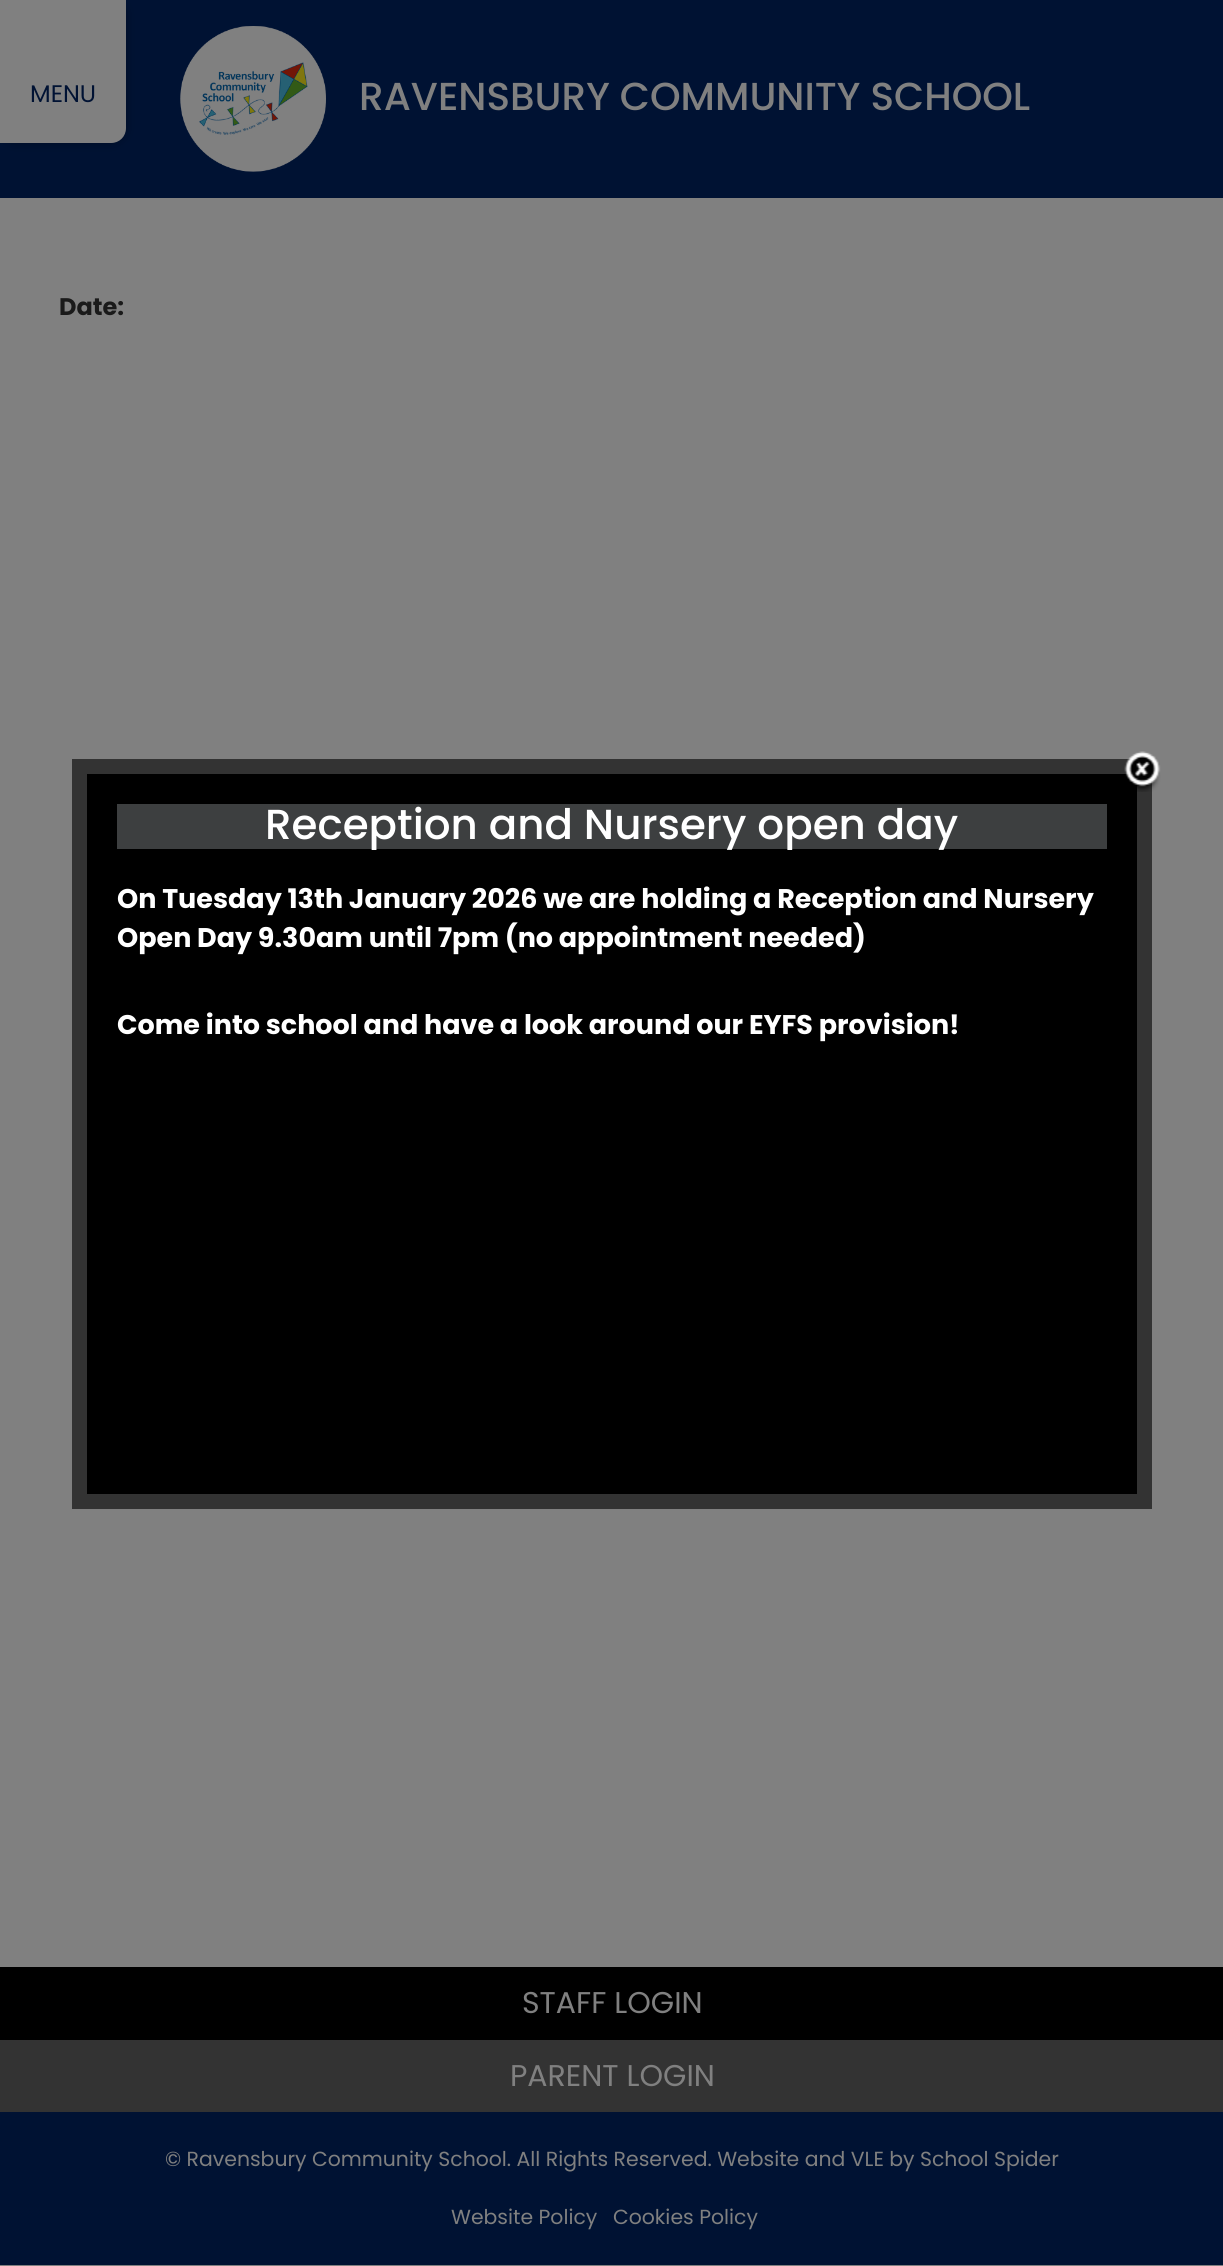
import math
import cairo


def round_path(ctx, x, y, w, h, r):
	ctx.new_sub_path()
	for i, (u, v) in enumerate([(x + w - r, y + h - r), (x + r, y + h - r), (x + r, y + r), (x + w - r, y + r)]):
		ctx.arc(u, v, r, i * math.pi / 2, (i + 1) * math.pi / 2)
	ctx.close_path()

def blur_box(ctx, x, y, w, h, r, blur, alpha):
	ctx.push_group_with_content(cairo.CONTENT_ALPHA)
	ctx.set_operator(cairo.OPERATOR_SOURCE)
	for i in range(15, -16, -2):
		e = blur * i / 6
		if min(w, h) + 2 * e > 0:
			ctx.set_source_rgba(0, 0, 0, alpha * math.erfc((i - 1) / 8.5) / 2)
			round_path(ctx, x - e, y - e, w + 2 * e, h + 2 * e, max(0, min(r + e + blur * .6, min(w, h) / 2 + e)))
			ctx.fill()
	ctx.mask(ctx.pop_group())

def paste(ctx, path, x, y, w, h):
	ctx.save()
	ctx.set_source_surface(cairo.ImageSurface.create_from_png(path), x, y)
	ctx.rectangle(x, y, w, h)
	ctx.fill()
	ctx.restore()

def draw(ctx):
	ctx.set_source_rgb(0.502, 0.502, 0.502)
	ctx.paint()
	ctx.set_source_rgb(0, 0.071, 0.2)
	ctx.rectangle(0, 0, 1223, 198)
	ctx.fill()
	ctx.set_source_rgb(0, 0, 0)
	blur_box(ctx, 0, 0, 126, 143, 15, 5, 0.3)
	ctx.set_source_rgb(0.502, 0.502, 0.502)
	ctx.new_path()
	ctx.move_to(0, 0)
	ctx.line_to(126, 0)
	ctx.line_to(126, 128)
	ctx.curve_to(126, 136.5, 119.5, 143, 111, 143)
	ctx.line_to(0, 143)
	ctx.close_path()
	ctx.fill()
	ctx.select_font_face('Poppins')
	ctx.set_font_size(24)
	ctx.set_source_rgb(0, 0.071, 0.2)
	ctx.move_to(30, 102)
	ctx.show_text('MENU')
	paste(ctx, 'media/1.png', 180, 26, 146, 146)
	ctx.select_font_face('Poppins Medium')
	ctx.set_font_size(39)
	ctx.set_source_rgb(0.502, 0.502, 0.502)
	ctx.move_to(359, 110)
	ctx.show_text('RAVENSBURY COMMUNITY SCHOOL')
	ctx.select_font_face('Poppins', cairo.FONT_SLANT_NORMAL, cairo.FONT_WEIGHT_BOLD)
	ctx.set_font_size(24)
	ctx.set_source_rgb(0.102, 0.102, 0.102)
	ctx.move_to(59, 315)
	ctx.show_text('Date:')
	ctx.set_source_rgb(0, 0, 0)
	ctx.rectangle(79.5, 766.5, 1065, 735)
	ctx.fill_preserve()
	ctx.set_source_rgb(0.2, 0.2, 0.2)
	ctx.set_line_width(15)
	ctx.stroke()
	paste(ctx, 'media/2.png', 1124, 751, 37, 41)
	ctx.set_source_rgb(0.239, 0.247, 0.251)
	ctx.rectangle(117, 804, 990, 45)
	ctx.fill()
	ctx.select_font_face('Poppins Medium')
	ctx.set_font_size(42)
	ctx.set_source_rgb(1, 1, 1)
	ctx.move_to(265, 839)
	ctx.show_text('Reception and Nursery open day')
	ctx.select_font_face('Poppins', cairo.FONT_SLANT_NORMAL, cairo.FONT_WEIGHT_BOLD)
	ctx.set_font_size(27)
	for x, y, s in [
		(117, 908, 'On Tuesday 13th January 2026 we are holding a Reception and Nursery'),
		(117, 947, 'Open Day 9.30am until 7pm (no appointment needed)'),
		(117, 1034, 'Come into school and have a look around our EYFS provision!'),
	]:
		ctx.move_to(x, y)
		ctx.show_text(s)
	ctx.set_source_rgb(0, 0, 0)
	ctx.rectangle(0, 1967, 1223, 73)
	ctx.fill()
	ctx.select_font_face('Poppins')
	ctx.set_font_size(30)
	ctx.set_source_rgb(0.502, 0.502, 0.502)
	ctx.move_to(522, 2013)
	ctx.show_text('STAFF LOGIN')
	ctx.set_source_rgb(0.2, 0.2, 0.2)
	ctx.rectangle(0, 2040, 1223, 72)
	ctx.fill()
	ctx.set_source_rgb(0.502, 0.502, 0.502)
	ctx.move_to(510, 2086)
	ctx.show_text('PARENT LOGIN')
	ctx.set_source_rgb(0, 0.071, 0.2)
	ctx.rectangle(0, 2112, 1223, 153)
	ctx.fill()
	ctx.set_font_size(20.4)
	ctx.set_source_rgb(0.502, 0.502, 0.502)
	for x, y, s in [
		(165, 2166, '© Ravensbury Community School. All Rights Reserved. Website and VLE by'),
		(920, 2166, 'School Spider'),
		(451, 2224, 'Website Policy'),
		(613, 2224, 'Cookies Policy'),
	]:
		ctx.move_to(x, y)
		ctx.show_text(s)


surface = cairo.ImageSurface(cairo.FORMAT_RGB24, 1223, 2266)
ctx = cairo.Context(surface)
options = cairo.FontOptions()
options.set_hint_metrics(cairo.HINT_METRICS_OFF)
options.set_hint_style(cairo.HINT_STYLE_NONE)
ctx.set_font_options(options)
ctx.set_miter_limit(4)
draw(ctx)
surface.write_to_png('image.png')
